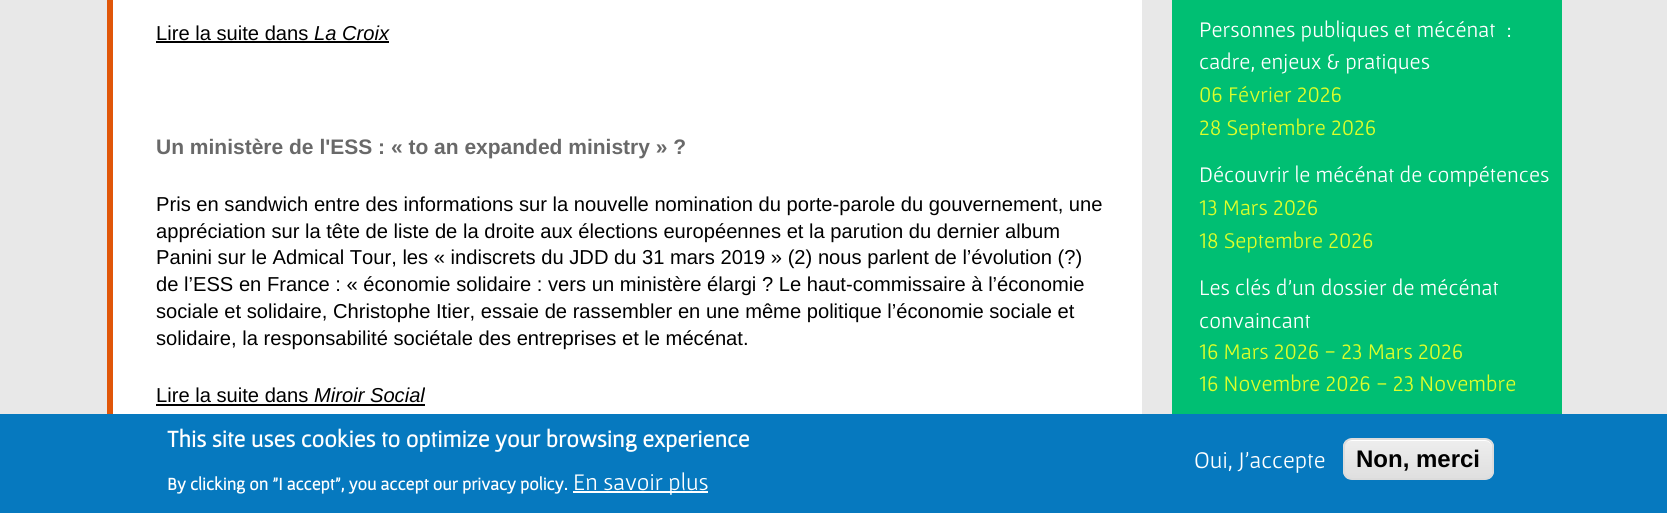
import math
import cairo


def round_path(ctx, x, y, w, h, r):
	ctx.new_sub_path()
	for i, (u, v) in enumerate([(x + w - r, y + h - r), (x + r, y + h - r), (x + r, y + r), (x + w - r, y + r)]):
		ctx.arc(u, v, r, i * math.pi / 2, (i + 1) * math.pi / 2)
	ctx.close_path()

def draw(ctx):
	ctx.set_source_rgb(0.91, 0.91, 0.91)
	ctx.paint()
	ctx.set_source_rgb(1, 1, 1)
	ctx.rectangle(113, 0, 1029, 414)
	ctx.fill()
	ctx.set_source_rgb(0.878, 0.337, 0.039)
	ctx.rectangle(107, 0, 6, 414)
	ctx.fill()
	ctx.select_font_face('Liberation Sans')
	ctx.set_font_size(20.15)
	ctx.set_source_rgb(0, 0, 0)
	ctx.move_to(156, 40)
	ctx.show_text('Lire la suite dans')
	ctx.rectangle(156, 41, 233, 2)
	ctx.fill()
	ctx.select_font_face('Liberation Sans', cairo.FONT_SLANT_ITALIC)
	ctx.move_to(314, 40)
	ctx.show_text('La Croix')
	ctx.select_font_face('Liberation Sans', cairo.FONT_SLANT_NORMAL, cairo.FONT_WEIGHT_BOLD)
	ctx.set_font_size(21)
	ctx.set_source_rgb(0.412, 0.412, 0.412)
	ctx.move_to(156, 154)
	ctx.show_text('Un ministère de l\'ESS : « to an expanded ministry » ?')
	ctx.select_font_face('Liberation Sans')
	ctx.set_font_size(20.15)
	ctx.set_source_rgb(0, 0, 0)
	for x, y, s in [
		(156, 211, 'Pris en sandwich entre des informations sur la nouvelle nomination du porte-parole du gouvernement, une'),
		(156, 238, 'appréciation sur la tête de liste de la droite aux élections européennes et la parution du dernier album'),
		(156, 264, 'Panini sur le Admical Tour, les « indiscrets du JDD du 31 mars 2019 » (2) nous parlent de l’évolution (?)'),
		(156, 291, 'de l’ESS en France : « économie solidaire : vers un ministère élargi ? Le haut-commissaire à l’économie'),
		(156, 318, 'sociale et solidaire, Christophe Itier, essaie de rassembler en une même politique l’économie sociale et'),
		(156, 345, 'solidaire, la responsabilité sociétale des entreprises et le mécénat.'),
		(156, 402, 'Lire la suite dans'),
	]:
		ctx.move_to(x, y)
		ctx.show_text(s)
	ctx.rectangle(156, 404, 269, 2)
	ctx.fill()
	ctx.select_font_face('Liberation Sans', cairo.FONT_SLANT_ITALIC)
	ctx.move_to(314, 402)
	ctx.show_text('Miroir Social')
	ctx.set_source_rgb(0, 0.749, 0.451)
	ctx.rectangle(1172, 0, 390, 414)
	ctx.fill()
	ctx.select_font_face('Gafata')
	ctx.set_font_size(22.5)
	ctx.set_source_rgb(1, 1, 1)
	ctx.move_to(1199, 37)
	ctx.show_text('Personnes publiques et mécénat :')
	ctx.move_to(1199, 69)
	ctx.show_text('cadre, enjeux & pratiques')
	ctx.set_source_rgb(0.871, 1, 0.161)
	ctx.move_to(1199, 102)
	ctx.show_text('06 Février 2026')
	ctx.move_to(1199, 135)
	ctx.show_text('28 Septembre 2026')
	ctx.set_source_rgb(1, 1, 1)
	ctx.move_to(1199, 182)
	ctx.show_text('Découvrir le mécénat de compétences')
	ctx.set_source_rgb(0.871, 1, 0.161)
	ctx.move_to(1199, 215)
	ctx.show_text('13 Mars 2026')
	ctx.move_to(1199, 248)
	ctx.show_text('18 Septembre 2026')
	ctx.set_source_rgb(1, 1, 1)
	ctx.move_to(1199, 295)
	ctx.show_text('Les clés d\'un dossier de mécénat')
	ctx.move_to(1199, 328)
	ctx.show_text('convaincant')
	ctx.set_source_rgb(0.871, 1, 0.161)
	ctx.move_to(1199, 359)
	ctx.show_text('16 Mars 2026 - 23 Mars 2026')
	ctx.move_to(1199, 391)
	ctx.show_text('16 Novembre 2026 - 23 Novembre')
	ctx.set_source_rgb(0.027, 0.475, 0.749)
	ctx.rectangle(0, 414, 1667, 99)
	ctx.fill()
	ctx.select_font_face('Gafata', cairo.FONT_SLANT_NORMAL, cairo.FONT_WEIGHT_BOLD)
	ctx.set_font_size(24)
	ctx.set_source_rgb(1, 1, 1)
	ctx.move_to(167, 447)
	ctx.show_text('This site uses cookies to optimize your browsing experience')
	ctx.set_font_size(18)
	ctx.move_to(167, 490)
	ctx.show_text('By clicking on "I accept", you accept our privacy policy.')
	ctx.rectangle(573, 491, 135, 2)
	ctx.fill()
	ctx.select_font_face('Gafata')
	ctx.set_font_size(24)
	ctx.move_to(573, 490)
	ctx.show_text('En savoir plus')
	ctx.move_to(1194, 468)
	ctx.show_text('Oui, J\'accepte')
	ctx.save()
	round_path(ctx, 1343, 438, 151, 42, 9)
	ctx.clip()
	gradient = cairo.LinearGradient(1418, 440, 1418, 479)
	gradient.add_color_stop_rgba(0.05, 0.929, 0.929, 0.929, 1)
	gradient.add_color_stop_rgba(1, 0.875, 0.875, 0.875, 1)
	ctx.set_source(gradient)
	ctx.rectangle(1343, 440, 151, 39)
	ctx.fill()
	ctx.restore()
	ctx.new_path()
	ctx.move_to(1352, 441)
	ctx.line_to(1485, 441)
	ctx.curve_to(1489, 441, 1492, 444, 1492, 448)
	ctx.line_to(1492, 472)
	ctx.line_to(1491, 476)
	ctx.curve_to(1492, 475, 1493, 473, 1493, 471)
	ctx.line_to(1493, 448)
	ctx.curve_to(1493, 444, 1489, 440, 1485, 440)
	ctx.line_to(1352, 440)
	ctx.curve_to(1348, 440, 1344, 444, 1344, 448)
	ctx.curve_to(1344, 444, 1347, 441, 1352, 441)
	ctx.close_path()
	ctx.fill()
	round_path(ctx, 1344, 439, 149, 40, 8)
	ctx.set_source_rgb(0.863, 0.863, 0.863)
	ctx.stroke()
	ctx.select_font_face('Liberation Sans', cairo.FONT_SLANT_NORMAL, cairo.FONT_WEIGHT_BOLD)
	ctx.set_source_rgb(0, 0, 0)
	ctx.move_to(1356, 467)
	ctx.show_text('Non, merci')


surface = cairo.ImageSurface(cairo.FORMAT_RGB24, 1667, 513)
ctx = cairo.Context(surface)
options = cairo.FontOptions()
options.set_hint_metrics(cairo.HINT_METRICS_OFF)
options.set_hint_style(cairo.HINT_STYLE_NONE)
ctx.set_font_options(options)
ctx.set_miter_limit(4)
draw(ctx)
surface.write_to_png('image.png')
